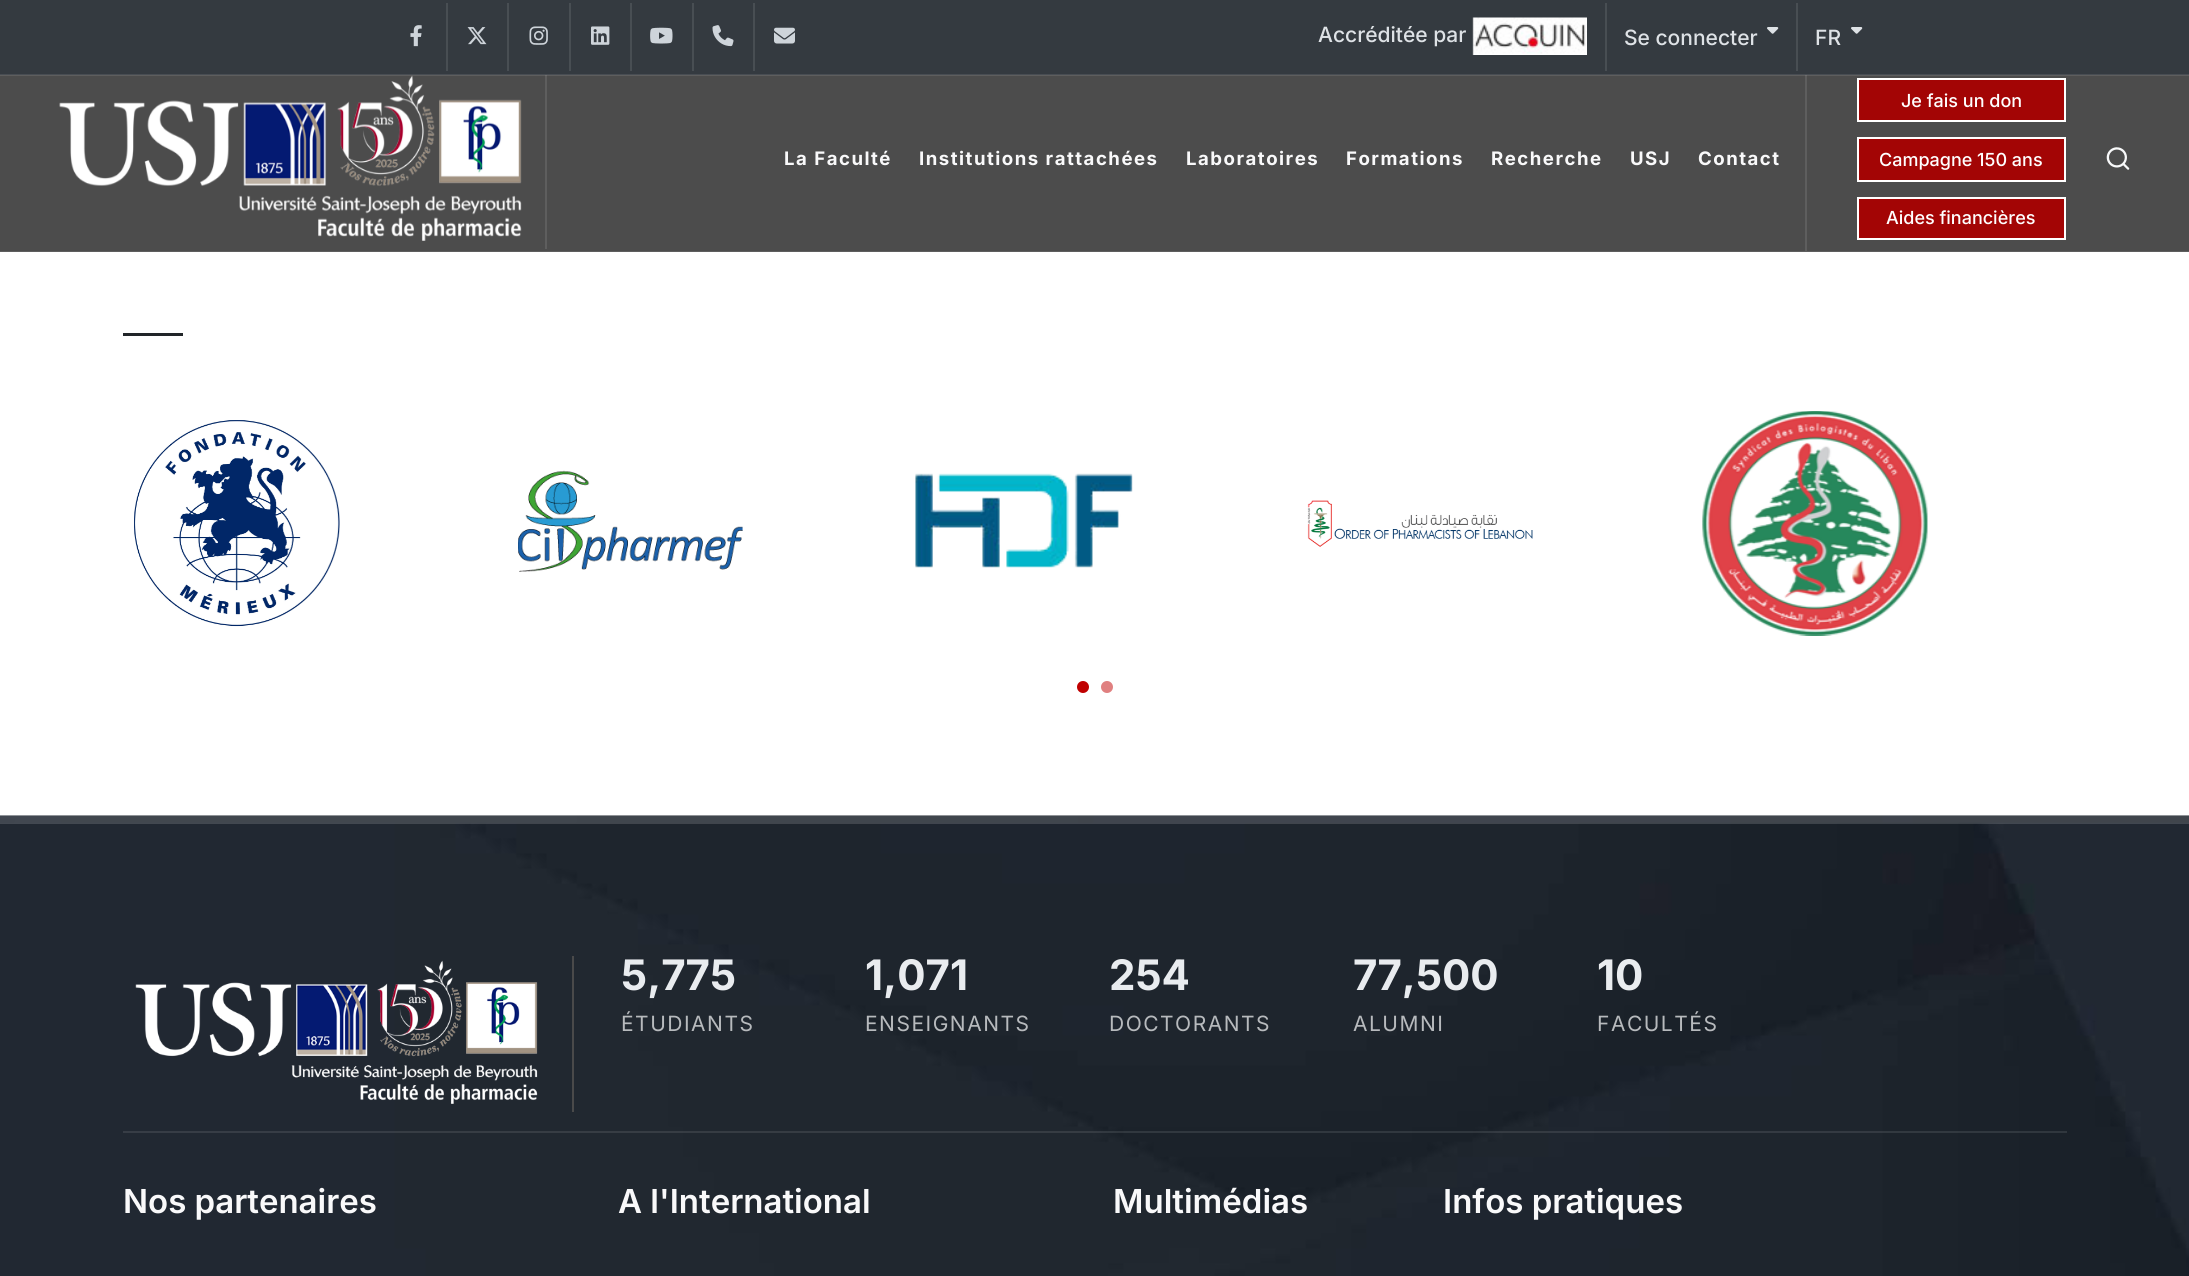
import math
import cairo


def write_spaced(ctx, x, y, s, letter, word):
	ctx.move_to(x, y)
	for ch in s:
		ctx.show_text(ch)
		ctx.rel_move_to(letter + word * (ch == ' '), 0)

def paste(ctx, path, x, y, w, h):
	ctx.save()
	ctx.set_source_surface(cairo.ImageSurface.create_from_png(path), x, y)
	ctx.rectangle(x, y, w, h)
	ctx.fill()
	ctx.restore()

def draw(ctx):
	ctx.set_source_rgb(1, 1, 1)
	ctx.paint()
	ctx.set_source_rgba(0, 0, 0, 0.7)
	ctx.rectangle(0, 75, 2189, 177)
	ctx.fill()
	ctx.set_source_rgb(0.369, 0.369, 0.369)
	ctx.rectangle(545, 69, 2, 180)
	ctx.rectangle(1805, 68, 2, 183)
	ctx.fill()
	ctx.set_source_rgb(0.204, 0.227, 0.251)
	ctx.rectangle(0, 0, 2189, 75)
	ctx.fill()
	paste(ctx, 'media/10.png', 59, 75, 463, 166)
	ctx.set_source_rgba(1, 1, 1, 0.1)
	ctx.rectangle(0, 74, 2189, 2)
	ctx.fill()
	paste(ctx, 'media/1.png', 410, 25, 12, 22)
	ctx.set_source_rgb(0.282, 0.306, 0.325)
	ctx.rectangle(446, 3, 2, 68)
	ctx.fill()
	paste(ctx, 'media/2.png', 467, 27, 20, 18)
	ctx.rectangle(507, 3, 2, 68)
	ctx.fill()
	paste(ctx, 'media/3.png', 529, 26, 19, 19)
	ctx.rectangle(569, 3, 2, 68)
	ctx.fill()
	paste(ctx, 'media/4.png', 591, 26, 19, 19)
	ctx.rectangle(630, 3, 2, 68)
	ctx.fill()
	paste(ctx, 'media/5.png', 650, 27, 23, 17)
	ctx.rectangle(692, 3, 2, 68)
	ctx.fill()
	paste(ctx, 'media/6.png', 712, 25, 22, 22)
	ctx.rectangle(753, 3, 2, 68)
	ctx.fill()
	paste(ctx, 'media/7.png', 774, 27, 21, 17)
	ctx.select_font_face('Inter Medium')
	ctx.set_font_size(21)
	ctx.set_source_rgb(0.871, 0.886, 0.902)
	ctx.move_to(1318, 42)
	ctx.show_text('Accréditée par')
	paste(ctx, 'media/8.png', 1472, 17, 115, 38)
	ctx.set_source_rgb(0.282, 0.306, 0.325)
	ctx.rectangle(1605, 3, 2, 68)
	ctx.fill()
	ctx.set_source_rgb(0.871, 0.886, 0.902)
	ctx.move_to(1624, 45)
	ctx.show_text('Se connecter')
	paste(ctx, 'media/9.png', 1767, 27, 12, 7)
	ctx.set_source_rgb(0.282, 0.306, 0.325)
	ctx.rectangle(1796, 3, 2, 68)
	ctx.fill()
	ctx.set_source_rgb(0.871, 0.886, 0.902)
	ctx.move_to(1815, 45)
	ctx.show_text('FR')
	paste(ctx, 'media/9.png', 1851, 27, 12, 7)
	ctx.set_source_rgba(1, 1, 1, 0.1)
	ctx.rectangle(0, 251, 2189, 1)
	ctx.fill()
	ctx.select_font_face('Inter', cairo.FONT_SLANT_NORMAL, cairo.FONT_WEIGHT_BOLD)
	ctx.set_font_size(18.6)
	ctx.set_source_rgb(0.973, 0.976, 0.98)
	for x, y, s in [
		(784, 165, 'La Faculté'),
		(919, 165, 'Institutions rattachées'),
		(1186, 165, 'Laboratoires'),
		(1346, 165, 'Formations'),
		(1491, 165, 'Recherche'),
		(1630, 165, 'USJ'),
		(1698, 165, 'Contact'),
	]:
		write_spaced(ctx, x, y, s, 1.5, 0)
	ctx.set_source_rgb(0.639, 0.02, 0.02)
	ctx.rectangle(1858, 79, 207, 42)
	ctx.fill_preserve()
	ctx.set_source_rgb(1, 1, 1)
	ctx.stroke()
	ctx.select_font_face('Inter Medium')
	ctx.set_font_size(18)
	ctx.move_to(1901, 107)
	ctx.show_text('Je fais un don')
	ctx.set_source_rgb(0.639, 0.02, 0.02)
	ctx.rectangle(1858, 138, 207, 43)
	ctx.fill_preserve()
	ctx.set_source_rgb(1, 1, 1)
	ctx.stroke()
	ctx.move_to(1879, 166)
	ctx.show_text('Campagne 150 ans')
	ctx.set_source_rgb(0.639, 0.02, 0.02)
	ctx.rectangle(1858, 198, 207, 41)
	ctx.fill_preserve()
	ctx.set_source_rgb(1, 1, 1)
	ctx.stroke()
	ctx.move_to(1886, 224)
	ctx.show_text('Aides financières')
	paste(ctx, 'media/11.png', 2106, 147, 24, 23)
	ctx.set_source_rgb(0.129, 0.145, 0.161)
	ctx.rectangle(123, 333, 60, 3)
	ctx.fill()
	paste(ctx, 'media/12.png', 134, 420, 206, 207)
	paste(ctx, 'media/13.png', 518, 470, 225, 102)
	paste(ctx, 'media/14.png', 915, 473, 218, 95)
	paste(ctx, 'media/15.png', 1307, 500, 226, 47)
	paste(ctx, 'media/16.png', 1702, 411, 226, 225)
	ctx.set_source_rgb(0.753, 0, 0)
	ctx.arc(1083, 687, 6, 0, 2 * math.pi)
	ctx.fill()
	ctx.set_source_rgb(0.878, 0.502, 0.502)
	ctx.arc(1107, 687, 6, 0, 2 * math.pi)
	ctx.fill()
	paste(ctx, 'media/17.png', 0, 815, 2189, 461)
	ctx.set_source_rgba(1, 1, 1, 0.15)
	ctx.rectangle(0, 816, 2189, 8)
	ctx.fill()
	ctx.set_source_rgb(0.29, 0.29, 0.29)
	ctx.rectangle(572, 956, 2, 156)
	ctx.fill()
	paste(ctx, 'media/18.png', 135, 960, 403, 144)
	ctx.select_font_face('Inter', cairo.FONT_SLANT_NORMAL, cairo.FONT_WEIGHT_BOLD)
	ctx.set_font_size(42)
	ctx.set_source_rgb(0.914, 0.925, 0.937)
	ctx.move_to(621, 990)
	ctx.show_text('5,775')
	ctx.select_font_face('Inter')
	ctx.set_font_size(21)
	ctx.set_source_rgb(0.718, 0.729, 0.741)
	write_spaced(ctx, 621, 1031, 'ÉTUDIANTS', 1.5, 0)
	ctx.select_font_face('Inter', cairo.FONT_SLANT_NORMAL, cairo.FONT_WEIGHT_BOLD)
	ctx.set_font_size(42)
	ctx.set_source_rgb(0.914, 0.925, 0.937)
	ctx.move_to(865, 990)
	ctx.show_text('1,071')
	ctx.select_font_face('Inter')
	ctx.set_font_size(21)
	ctx.set_source_rgb(0.718, 0.729, 0.741)
	write_spaced(ctx, 865, 1031, 'ENSEIGNANTS', 1.5, 0)
	ctx.select_font_face('Inter', cairo.FONT_SLANT_NORMAL, cairo.FONT_WEIGHT_BOLD)
	ctx.set_font_size(42)
	ctx.set_source_rgb(0.914, 0.925, 0.937)
	ctx.move_to(1109, 990)
	ctx.show_text('254')
	ctx.select_font_face('Inter')
	ctx.set_font_size(21)
	ctx.set_source_rgb(0.718, 0.729, 0.741)
	write_spaced(ctx, 1109, 1031, 'DOCTORANTS', 1.5, 0)
	ctx.select_font_face('Inter', cairo.FONT_SLANT_NORMAL, cairo.FONT_WEIGHT_BOLD)
	ctx.set_font_size(42)
	ctx.set_source_rgb(0.914, 0.925, 0.937)
	ctx.move_to(1353, 990)
	ctx.show_text('77,500')
	ctx.select_font_face('Inter')
	ctx.set_font_size(21)
	ctx.set_source_rgb(0.718, 0.729, 0.741)
	write_spaced(ctx, 1353, 1031, 'ALUMNI', 1.5, 0)
	ctx.select_font_face('Inter', cairo.FONT_SLANT_NORMAL, cairo.FONT_WEIGHT_BOLD)
	ctx.set_font_size(42)
	ctx.set_source_rgb(0.914, 0.925, 0.937)
	ctx.move_to(1597, 990)
	ctx.show_text('10')
	ctx.select_font_face('Inter')
	ctx.set_font_size(21)
	ctx.set_source_rgb(0.718, 0.729, 0.741)
	write_spaced(ctx, 1597, 1031, 'FACULTÉS', 1.5, 0)
	ctx.set_source_rgba(1, 1, 1, 0.1)
	ctx.rectangle(123, 1131, 1944, 2)
	ctx.fill()
	ctx.select_font_face('Inter SemiBold')
	ctx.set_font_size(33)
	ctx.set_source_rgb(0.973, 0.976, 0.98)
	for x, y, s in [
		(123, 1213, 'Nos partenaires'),
		(618, 1213, 'A l\'International'),
		(1113, 1213, 'Multimédias'),
		(1443, 1213, 'Infos pratiques'),
	]:
		ctx.move_to(x, y)
		ctx.show_text(s)


surface = cairo.ImageSurface(cairo.FORMAT_RGB24, 2189, 1276)
ctx = cairo.Context(surface)
options = cairo.FontOptions()
options.set_hint_metrics(cairo.HINT_METRICS_OFF)
options.set_hint_style(cairo.HINT_STYLE_NONE)
ctx.set_font_options(options)
ctx.set_miter_limit(4)
draw(ctx)
surface.write_to_png('image.png')
